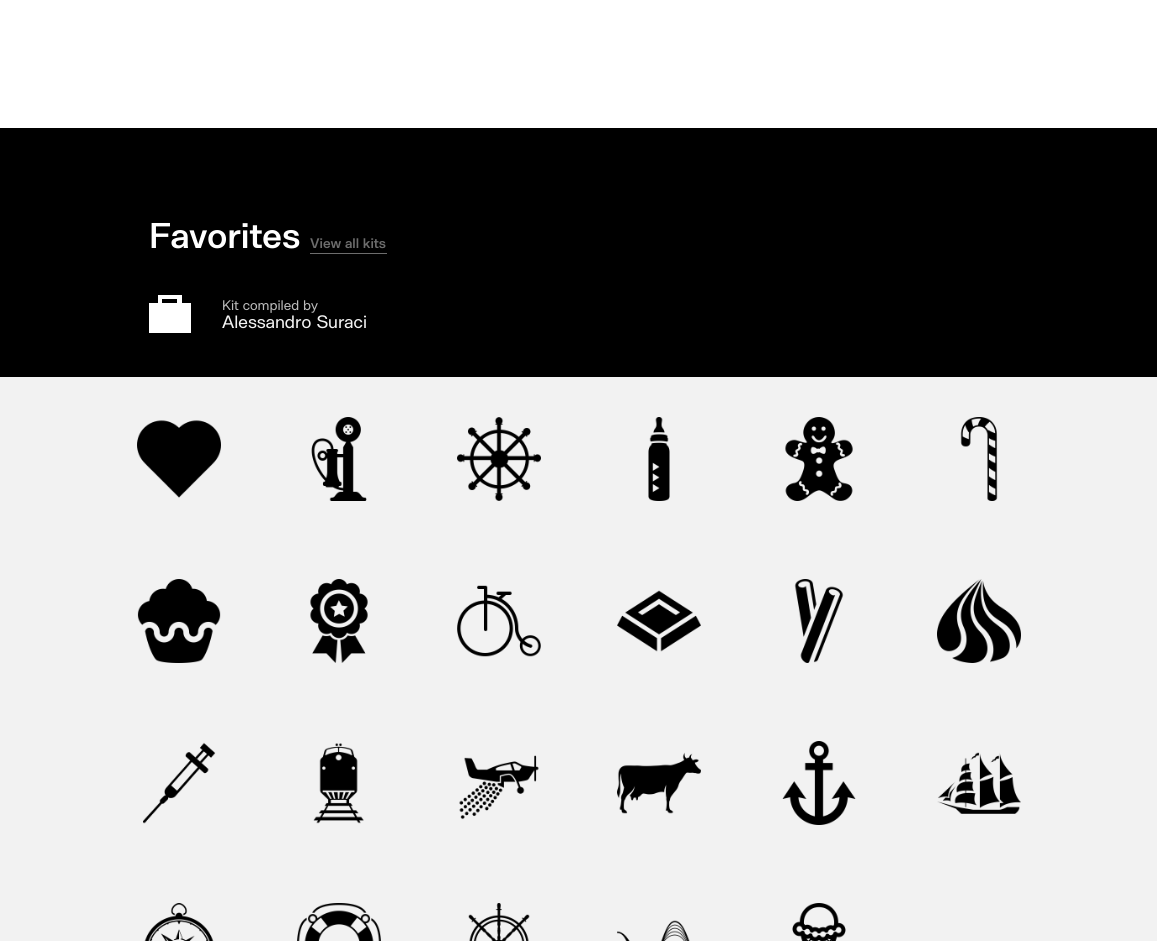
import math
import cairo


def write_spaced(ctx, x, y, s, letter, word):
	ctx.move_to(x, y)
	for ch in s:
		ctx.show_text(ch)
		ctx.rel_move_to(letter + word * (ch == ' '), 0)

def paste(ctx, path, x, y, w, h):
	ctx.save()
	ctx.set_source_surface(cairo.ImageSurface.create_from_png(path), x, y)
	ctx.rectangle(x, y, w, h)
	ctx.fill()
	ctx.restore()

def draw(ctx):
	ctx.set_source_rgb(0.949, 0.949, 0.949)
	ctx.paint()
	ctx.set_source_rgb(1, 1, 1)
	ctx.rectangle(0, 0, 1157, 128)
	ctx.fill()
	ctx.set_source_rgb(0, 0, 0)
	ctx.rectangle(0, 128, 1157, 249)
	ctx.fill()
	ctx.select_font_face('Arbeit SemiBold')
	ctx.set_font_size(36)
	ctx.set_source_rgb(1, 1, 1)
	ctx.move_to(149, 248)
	ctx.show_text('Favorites')
	ctx.set_source_rgb(0.427, 0.427, 0.427)
	ctx.rectangle(310, 253, 77, 1)
	ctx.fill()
	ctx.set_font_size(14)
	write_spaced(ctx, 310, 248, 'View all kits', 0, 1)
	ctx.set_source_rgb(1, 1, 1)
	ctx.new_path()
	ctx.move_to(182, 303)
	ctx.line_to(182, 295)
	ctx.line_to(158, 295)
	ctx.line_to(158, 303)
	ctx.line_to(149, 303)
	ctx.line_to(149, 333)
	ctx.line_to(191, 333)
	ctx.line_to(191, 303)
	ctx.close_path()
	ctx.move_to(162, 299)
	ctx.line_to(177, 299)
	ctx.line_to(177, 303)
	ctx.line_to(162, 303)
	ctx.close_path()
	ctx.fill()
	ctx.select_font_face('Arbeit')
	ctx.set_source_rgb(0.729, 0.729, 0.729)
	write_spaced(ctx, 222, 310, 'Kit compiled by', 0, 1)
	ctx.set_font_size(18)
	ctx.set_source_rgb(0.949, 0.949, 0.949)
	write_spaced(ctx, 222, 328, 'Alessandro Suraci', 0, 2)
	paste(ctx, 'media/1.png', 137, 420, 84, 78)
	paste(ctx, 'media/2.png', 311, 417, 56, 84)
	paste(ctx, 'media/3.png', 457, 417, 84, 84)
	paste(ctx, 'media/4.png', 648, 417, 22, 84)
	paste(ctx, 'media/5.png', 785, 417, 68, 84)
	paste(ctx, 'media/6.png', 960, 417, 38, 84)
	paste(ctx, 'media/7.png', 137, 579, 84, 84)
	paste(ctx, 'media/8.png', 310, 579, 58, 84)
	paste(ctx, 'media/9.png', 457, 585, 84, 72)
	paste(ctx, 'media/10.png', 617, 590, 84, 62)
	paste(ctx, 'media/11.png', 794, 579, 50, 84)
	paste(ctx, 'media/12.png', 937, 579, 84, 84)
	paste(ctx, 'media/13.png', 143, 742, 73, 82)
	paste(ctx, 'media/14.png', 313, 743, 51, 81)
	paste(ctx, 'media/15.png', 459, 755, 80, 65)
	paste(ctx, 'media/16.png', 617, 752, 84, 62)
	paste(ctx, 'media/17.png', 782, 741, 74, 84)
	paste(ctx, 'media/18.png', 937, 752, 84, 62)
	paste(ctx, 'media/19.png', 144, 903, 70, 38)
	paste(ctx, 'media/20.png', 297, 903, 84, 38)
	paste(ctx, 'media/21.png', 468, 903, 62, 38)
	paste(ctx, 'media/22.png', 617, 920, 73, 21)
	paste(ctx, 'media/23.png', 792, 903, 54, 38)


surface = cairo.ImageSurface(cairo.FORMAT_RGB24, 1157, 941)
ctx = cairo.Context(surface)
options = cairo.FontOptions()
options.set_hint_metrics(cairo.HINT_METRICS_OFF)
options.set_hint_style(cairo.HINT_STYLE_NONE)
ctx.set_font_options(options)
ctx.set_miter_limit(4)
draw(ctx)
surface.write_to_png('image.png')
